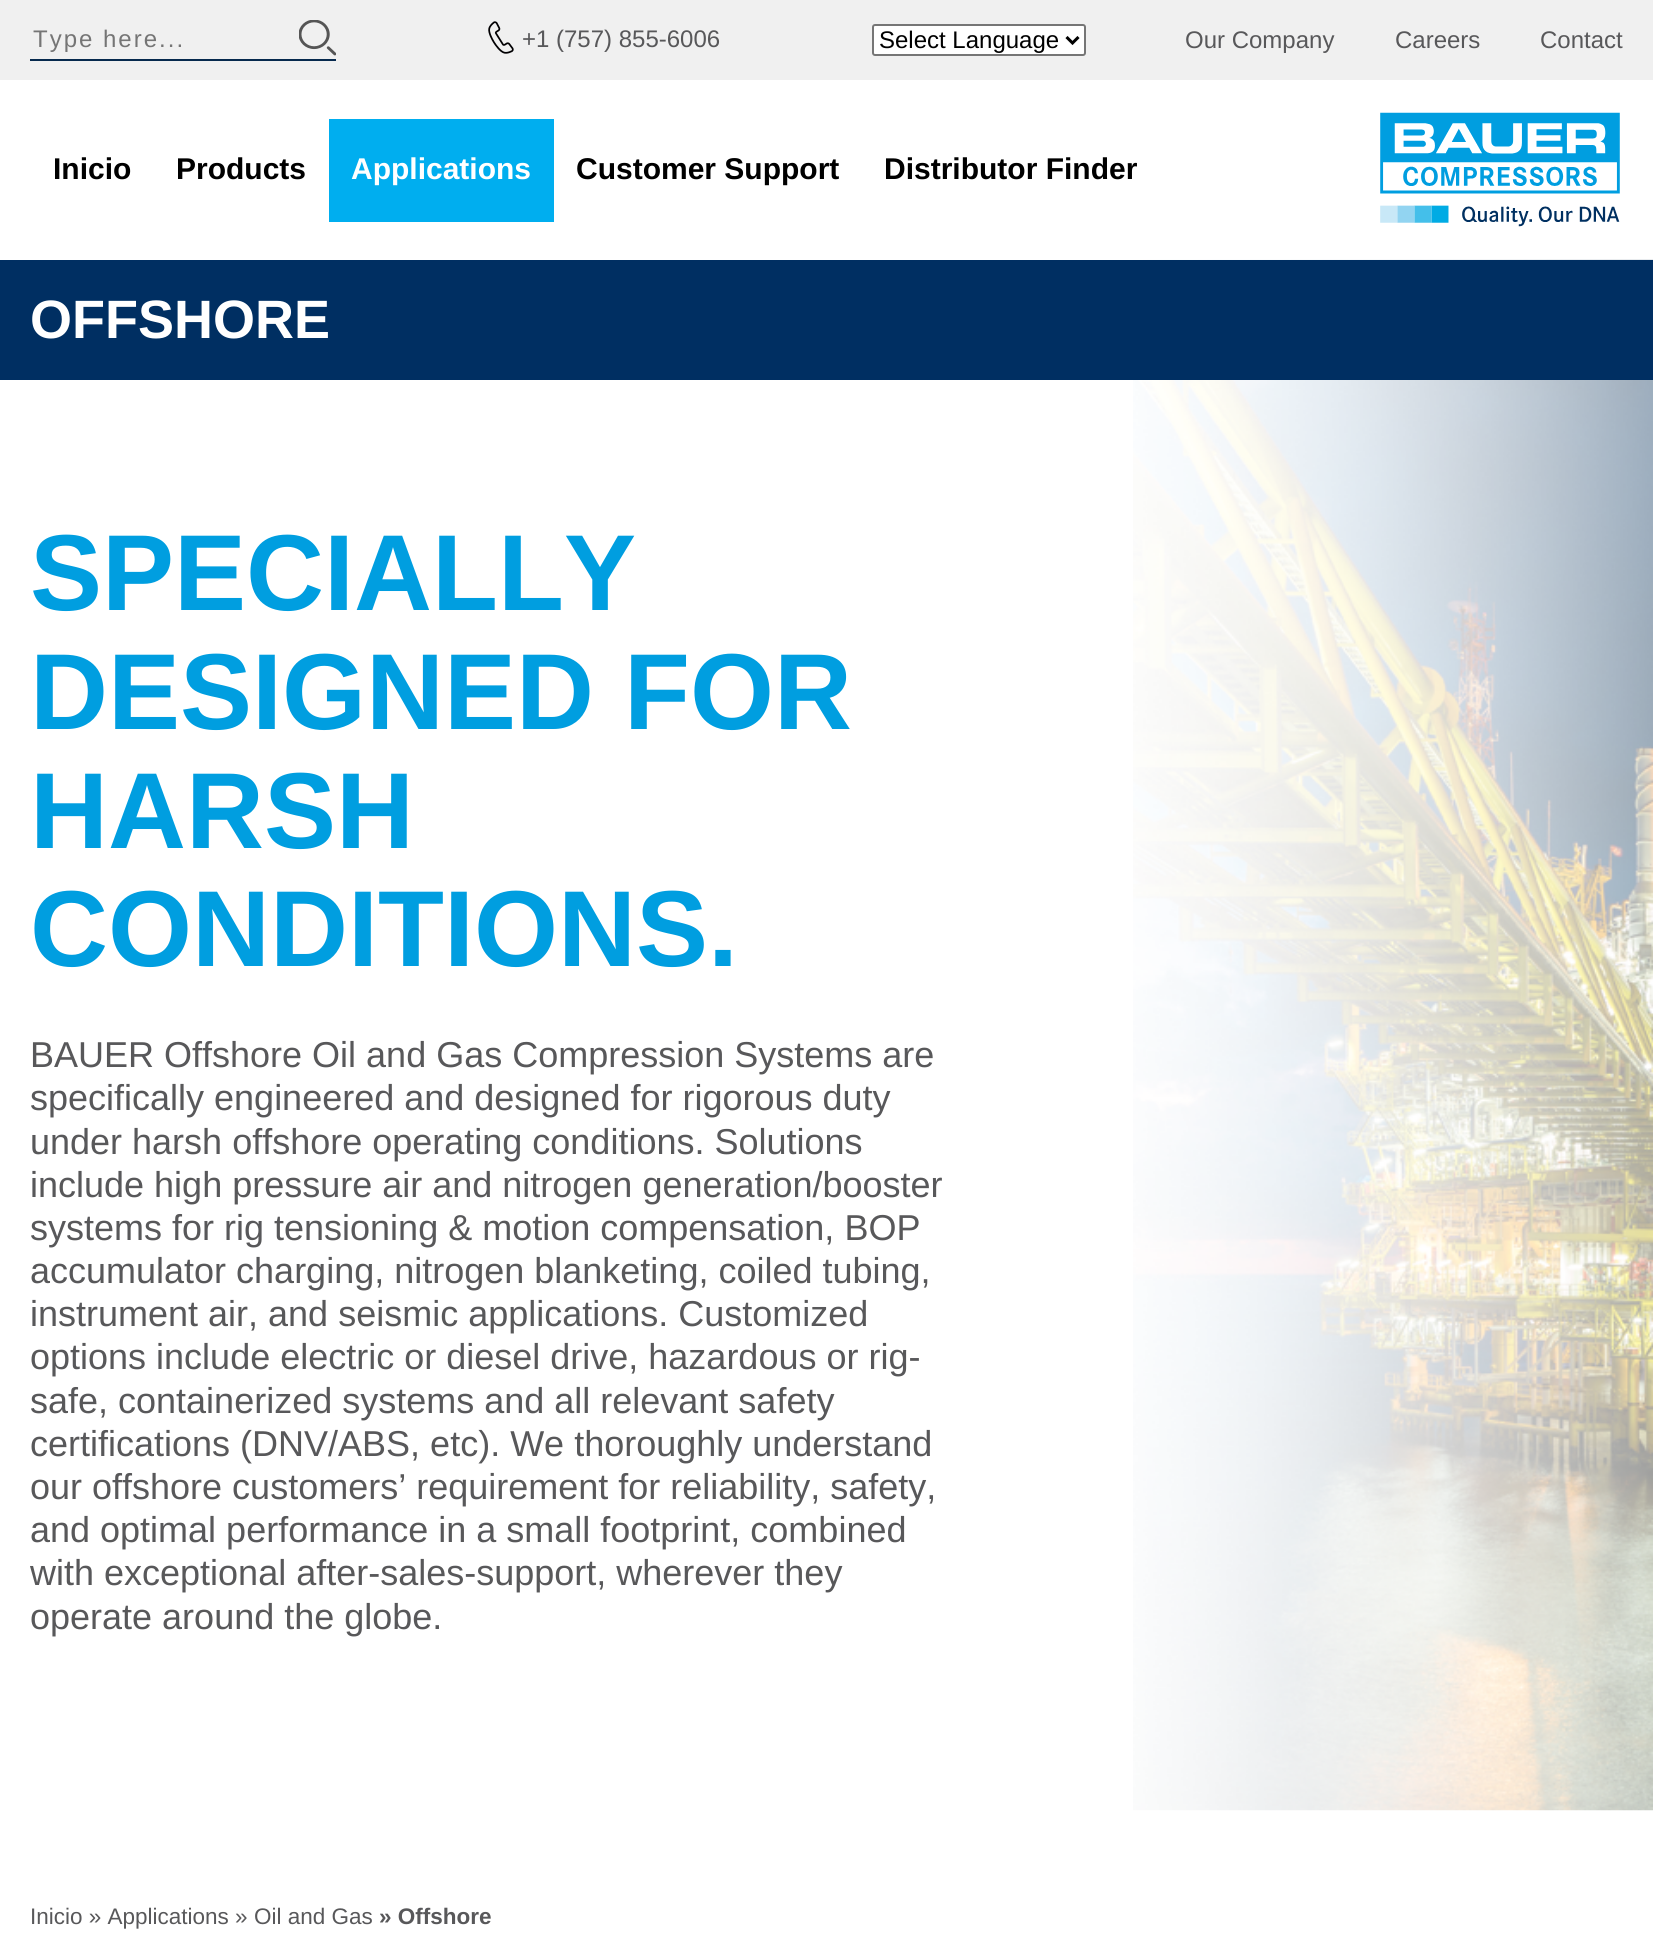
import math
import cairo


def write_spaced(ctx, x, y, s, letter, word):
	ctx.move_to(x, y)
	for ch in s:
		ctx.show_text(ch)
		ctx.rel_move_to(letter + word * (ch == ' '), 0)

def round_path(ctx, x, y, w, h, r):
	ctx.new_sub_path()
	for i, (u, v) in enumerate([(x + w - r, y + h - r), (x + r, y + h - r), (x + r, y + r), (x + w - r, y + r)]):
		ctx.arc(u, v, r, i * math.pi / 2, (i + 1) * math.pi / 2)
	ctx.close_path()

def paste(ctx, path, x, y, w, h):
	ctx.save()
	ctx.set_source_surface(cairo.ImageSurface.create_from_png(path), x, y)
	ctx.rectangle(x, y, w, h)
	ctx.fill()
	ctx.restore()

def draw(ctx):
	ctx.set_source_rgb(1, 1, 1)
	ctx.paint()
	ctx.set_source_rgb(0.941, 0.941, 0.941)
	ctx.rectangle(0, 0, 1653, 80)
	ctx.fill()
	ctx.set_source_rgb(0.027, 0.161, 0.302)
	ctx.rectangle(30, 59, 306, 2)
	ctx.fill()
	ctx.select_font_face('Liberation Sans')
	ctx.set_font_size(24)
	ctx.set_source_rgb(0.459, 0.459, 0.459)
	write_spaced(ctx, 33, 47, 'Type here...', 2, 0)
	paste(ctx, 'media/1.png', 299, 20, 37, 36)
	paste(ctx, 'media/2.png', 488, 21, 26, 33)
	ctx.set_source_rgb(0.345, 0.345, 0.353)
	ctx.move_to(522, 47)
	ctx.show_text('+1 (757) 855-6006')
	ctx.set_source_rgb(1, 1, 1)
	round_path(ctx, 873, 25, 212, 30, 2)
	ctx.fill_preserve()
	ctx.set_source_rgb(0.463, 0.463, 0.463)
	ctx.stroke()
	ctx.new_path()
	ctx.move_to(1066.5, 37)
	ctx.line_to(1072.5, 43)
	ctx.line_to(1078.5, 37)
	ctx.set_source_rgb(0, 0, 0)
	ctx.set_line_width(3)
	ctx.stroke()
	ctx.move_to(879, 48)
	ctx.show_text('Select Language')
	ctx.set_source_rgb(0.345, 0.345, 0.353)
	for x, y, s in [
		(1185, 48, 'Our Company'),
		(1395, 48, 'Careers'),
		(1540, 48, 'Contact'),
	]:
		ctx.move_to(x, y)
		ctx.show_text(s)
	ctx.select_font_face('Liberation Sans', cairo.FONT_SLANT_NORMAL, cairo.FONT_WEIGHT_BOLD)
	ctx.set_font_size(30)
	ctx.set_source_rgb(0, 0, 0)
	ctx.move_to(53, 179)
	ctx.show_text('Inicio')
	ctx.move_to(176, 179)
	ctx.show_text('Products')
	ctx.set_source_rgb(0, 0.682, 0.937)
	ctx.rectangle(329, 119, 225, 103)
	ctx.fill()
	ctx.set_source_rgb(1, 1, 1)
	ctx.move_to(351, 179)
	ctx.show_text('Applications')
	ctx.set_source_rgb(0, 0, 0)
	ctx.move_to(576, 179)
	ctx.show_text('Customer Support')
	ctx.move_to(884, 179)
	ctx.show_text('Distributor Finder')
	paste(ctx, 'media/3.png', 1380, 112, 240, 115)
	paste(ctx, 'media/4.png', 1133, 259, 520, 1552)
	ctx.set_source_rgb(0, 0.184, 0.384)
	ctx.rectangle(0, 260, 1653, 120)
	ctx.fill()
	ctx.set_font_size(54)
	ctx.set_source_rgb(1, 1, 1)
	ctx.move_to(30, 338)
	ctx.show_text('OFFSHORE')
	ctx.set_font_size(108)
	ctx.set_source_rgb(0, 0.62, 0.878)
	for x, y, s in [
		(30, 610, 'SPECIALLY'),
		(30, 729, 'DESIGNED FOR'),
		(30, 848, 'HARSH'),
		(30, 966, 'CONDITIONS.'),
	]:
		ctx.move_to(x, y)
		ctx.show_text(s)
	ctx.select_font_face('Liberation Sans')
	ctx.set_font_size(36)
	ctx.set_source_rgb(0.345, 0.345, 0.353)
	for x, y, s in [
		(30, 1067, 'BAUER Offshore Oil and Gas Compression Systems are'),
		(30, 1110, 'specifically engineered and designed for rigorous duty'),
		(30, 1154, 'under harsh offshore operating conditions. Solutions'),
		(30, 1197, 'include high pressure air and nitrogen generation/booster'),
		(30, 1240, 'systems for rig tensioning & motion compensation, BOP'),
		(30, 1283, 'accumulator charging, nitrogen blanketing, coiled tubing,'),
		(30, 1326, 'instrument air, and seismic applications. Customized'),
		(30, 1369, 'options include electric or diesel drive, hazardous or rig-'),
		(30, 1413, 'safe, containerized systems and all relevant safety'),
		(30, 1456, 'certifications (DNV/ABS, etc). We thoroughly understand'),
		(30, 1499, 'our offshore customers’ requirement for reliability, safety,'),
		(30, 1542, 'and optimal performance in a small footprint, combined'),
		(30, 1585, 'with exceptional after-sales-support, wherever they'),
		(30, 1629, 'operate around the globe.'),
	]:
		ctx.move_to(x, y)
		ctx.show_text(s)
	ctx.set_font_size(22.5)
	ctx.move_to(30, 1924)
	ctx.show_text('Inicio » Applications » Oil and Gas')
	ctx.select_font_face('Liberation Sans', cairo.FONT_SLANT_NORMAL, cairo.FONT_WEIGHT_BOLD)
	ctx.move_to(379, 1924)
	ctx.show_text('» Offshore')


surface = cairo.ImageSurface(cairo.FORMAT_RGB24, 1653, 1959)
ctx = cairo.Context(surface)
options = cairo.FontOptions()
options.set_hint_metrics(cairo.HINT_METRICS_OFF)
options.set_hint_style(cairo.HINT_STYLE_NONE)
ctx.set_font_options(options)
ctx.set_miter_limit(4)
draw(ctx)
surface.write_to_png('image.png')
